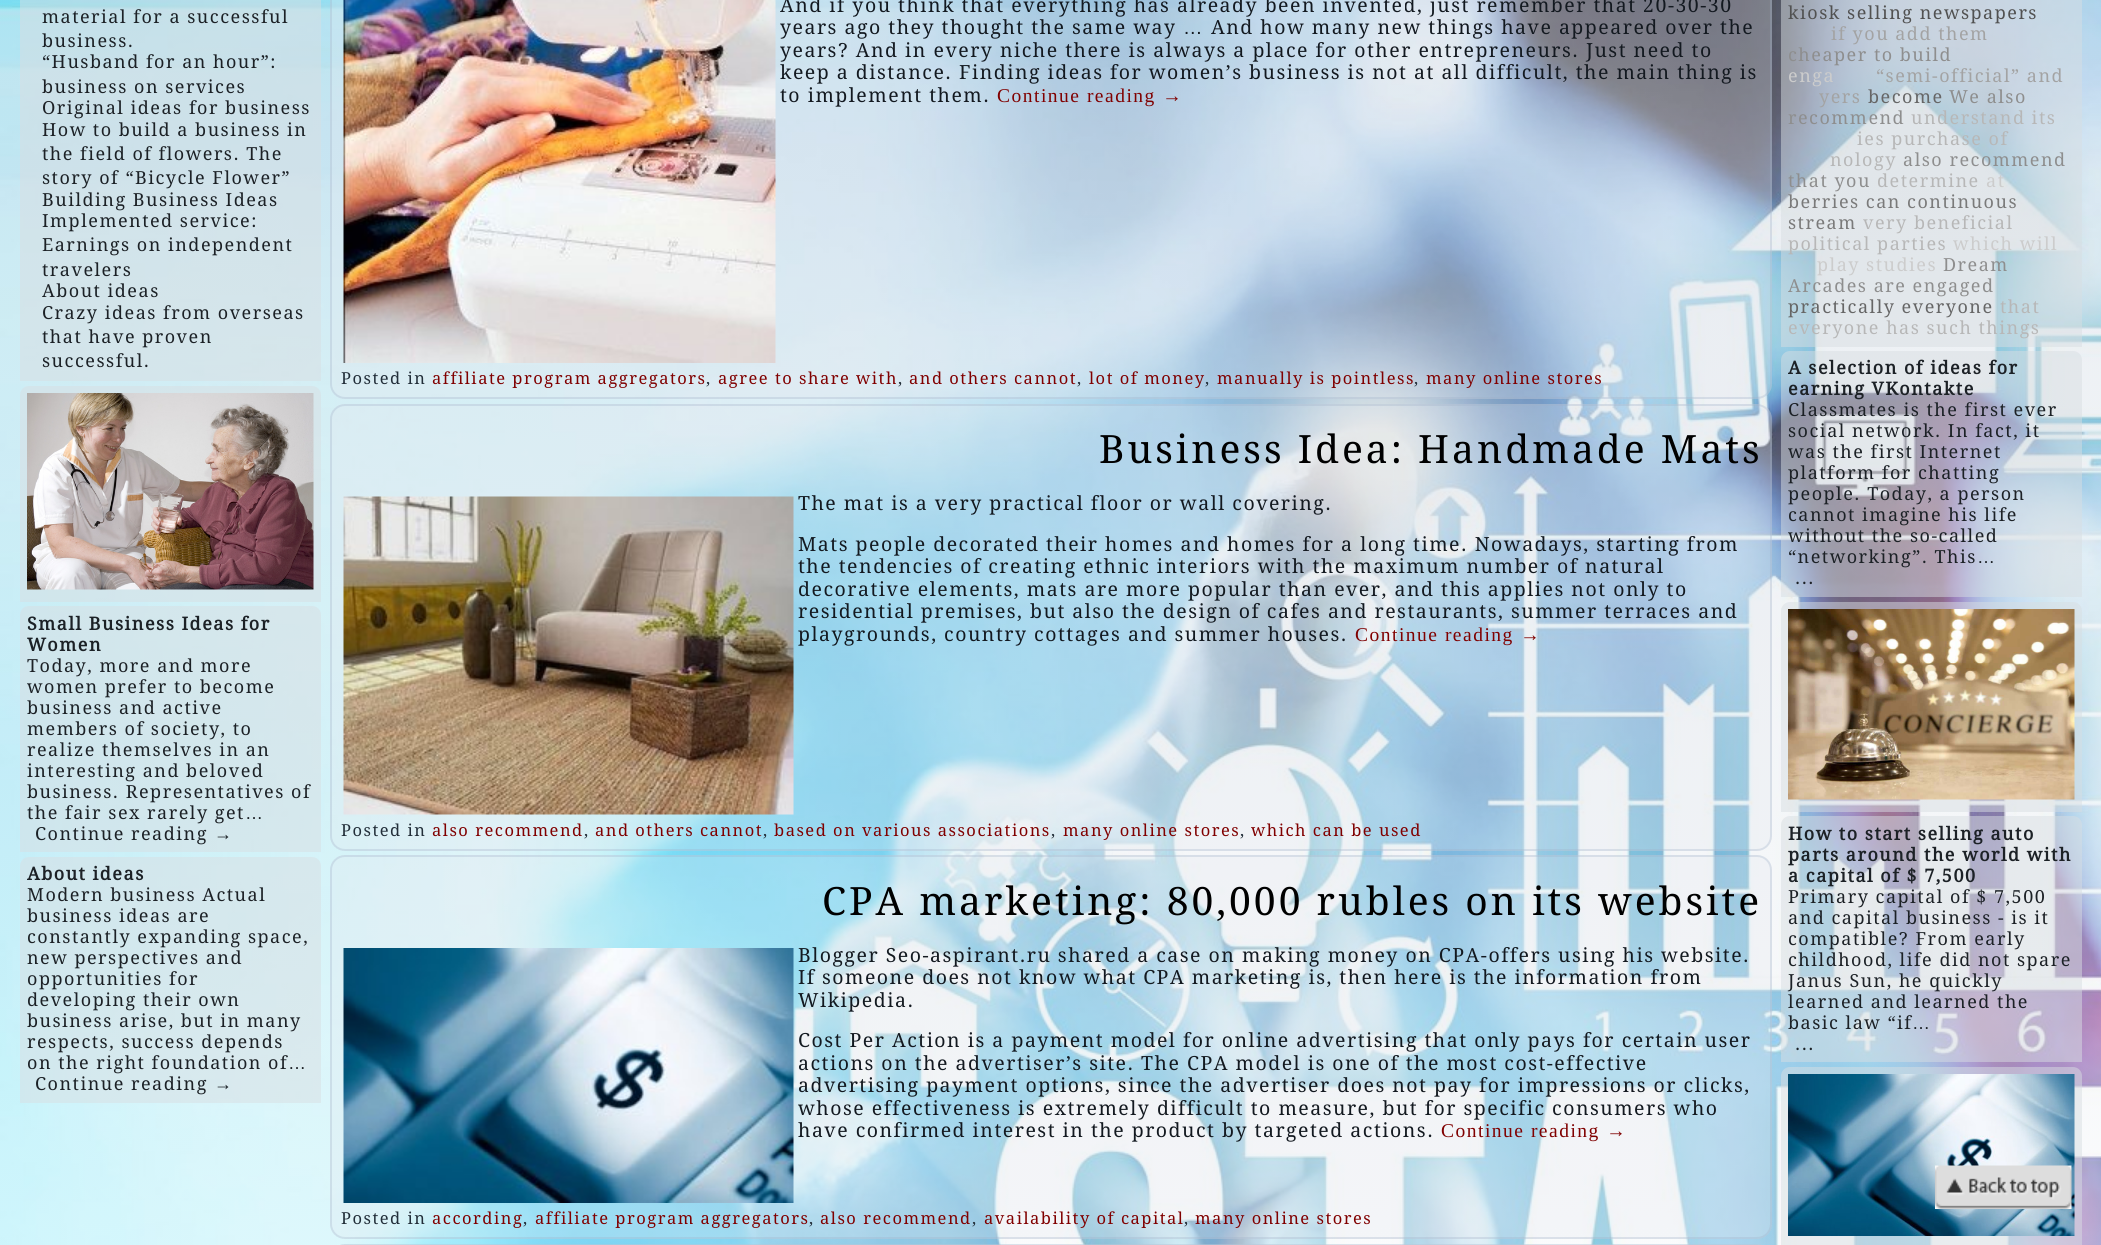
import math
import cairo


def write_spaced(ctx, x, y, s, letter, word):
	ctx.move_to(x, y)
	for ch in s:
		ctx.show_text(ch)
		ctx.rel_move_to(letter + word * (ch == ' '), 0)

def round_path(ctx, x, y, w, h, r):
	ctx.new_sub_path()
	for i, (u, v) in enumerate([(x + w - r, y + h - r), (x + r, y + h - r), (x + r, y + r), (x + w - r, y + r)]):
		ctx.arc(u, v, r, i * math.pi / 2, (i + 1) * math.pi / 2)
	ctx.close_path()

def paste(ctx, path, x, y, w, h):
	ctx.save()
	ctx.set_source_surface(cairo.ImageSurface.create_from_png(path), x, y)
	ctx.rectangle(x, y, w, h)
	ctx.fill()
	ctx.restore()

def draw(ctx):
	ctx.set_source_rgb(1, 1, 1)
	ctx.paint()
	paste(ctx, 'media/1.png', 0, 0, 2101, 1245)
	ctx.set_source_rgba(0.851, 0.871, 0.89, 0.5)
	ctx.rectangle(20, 0, 301, 381)
	ctx.fill()
	ctx.select_font_face('Droid Serif')
	ctx.set_font_size(18)
	ctx.set_source_rgb(0.11, 0.129, 0.149)
	for x, y, s in [
		(42, 23, 'material for a successful'),
		(42, 47, 'business.'),
		(42, 68, '“Husband for an hour”:'),
		(42, 93, 'business on services'),
		(42, 114, 'Original ideas for business'),
		(42, 136, 'How to build a business in'),
		(42, 160, 'the field of flowers. The'),
		(42, 184, 'story of “Bicycle Flower”'),
		(42, 206, 'Building Business Ideas'),
		(42, 227, 'Implemented service:'),
		(42, 251, 'Earnings on independent'),
		(42, 276, 'travelers'),
		(42, 297, 'About ideas'),
		(42, 319, 'Crazy ideas from overseas'),
		(42, 343, 'that have proven'),
		(42, 367, 'successful.'),
	]:
		write_spaced(ctx, x, y, s, 1.5, 0)
	ctx.set_source_rgba(0.851, 0.871, 0.89, 0.5)
	ctx.new_path()
	ctx.move_to(29, 386)
	ctx.line_to(312, 386)
	ctx.curve_to(317, 386, 321, 390, 321, 395)
	ctx.line_to(321, 602)
	ctx.line_to(20, 602)
	ctx.line_to(20, 395)
	ctx.curve_to(20, 390, 24, 386, 29, 386)
	ctx.close_path()
	ctx.fill()
	paste(ctx, 'media/2.png', 27, 393, 287, 197)
	ctx.new_path()
	ctx.move_to(29, 606)
	ctx.line_to(312, 606)
	ctx.curve_to(317, 606, 321, 610, 321, 615)
	ctx.line_to(321, 852)
	ctx.line_to(20, 852)
	ctx.line_to(20, 615)
	ctx.curve_to(20, 610, 24, 606, 29, 606)
	ctx.close_path()
	ctx.fill()
	ctx.select_font_face('Droid Serif', cairo.FONT_SLANT_NORMAL, cairo.FONT_WEIGHT_BOLD)
	ctx.set_source_rgb(0.11, 0.129, 0.149)
	write_spaced(ctx, 27, 630, 'Small Business Ideas for', 1.5, 0)
	write_spaced(ctx, 27, 651, 'Women', 1.5, 0)
	ctx.select_font_face('Droid Serif')
	for x, y, s in [
		(27, 672, 'Today, more and more'),
		(27, 693, 'women prefer to become'),
		(27, 714, 'business and active'),
		(27, 735, 'members of society, to'),
		(27, 756, 'realize themselves in an'),
		(27, 777, 'interesting and beloved'),
		(27, 798, 'business. Representatives of'),
		(27, 819, 'the fair sex rarely get'),
	]:
		write_spaced(ctx, x, y, s, 1.5, 0)
	ctx.select_font_face('Liberation Sans')
	write_spaced(ctx, 245, 819, '…', 1.5, 0)
	ctx.select_font_face('Droid Serif')
	write_spaced(ctx, 35, 840, 'Continue reading', 1.5, 0)
	ctx.select_font_face('Liberation Sans')
	write_spaced(ctx, 214, 840, '→', 1.5, 0)
	ctx.set_source_rgba(0.851, 0.871, 0.89, 0.5)
	ctx.new_path()
	ctx.move_to(29, 857)
	ctx.line_to(312, 857)
	ctx.curve_to(317, 857, 321, 861, 321, 866)
	ctx.line_to(321, 1103)
	ctx.line_to(20, 1103)
	ctx.line_to(20, 866)
	ctx.curve_to(20, 861, 24, 857, 29, 857)
	ctx.close_path()
	ctx.fill()
	ctx.select_font_face('Droid Serif', cairo.FONT_SLANT_NORMAL, cairo.FONT_WEIGHT_BOLD)
	ctx.set_source_rgb(0.11, 0.129, 0.149)
	write_spaced(ctx, 27, 880, 'About ideas', 1.5, 0)
	ctx.select_font_face('Droid Serif')
	for x, y, s in [
		(27, 901, 'Modern business Actual'),
		(27, 922, 'business ideas are'),
		(27, 943, 'constantly expanding space,'),
		(27, 964, 'new perspectives and'),
		(27, 985, 'opportunities for'),
		(27, 1006, 'developing their own'),
		(27, 1027, 'business arise, but in many'),
		(27, 1048, 'respects, success depends'),
		(27, 1069, 'on the right foundation of'),
	]:
		write_spaced(ctx, x, y, s, 1.5, 0)
	ctx.select_font_face('Liberation Sans')
	write_spaced(ctx, 288, 1069, '…', 1.5, 0)
	ctx.select_font_face('Droid Serif')
	write_spaced(ctx, 35, 1090, 'Continue reading', 1.5, 0)
	ctx.select_font_face('Liberation Sans')
	write_spaced(ctx, 214, 1090, '→', 1.5, 0)
	ctx.set_source_rgba(0.886, 0.91, 0.933, 0.3)
	round_path(ctx, 330, -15, 1442, 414, 15)
	ctx.fill()
	round_path(ctx, 331, -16, 1440, 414, 14)
	ctx.set_source_rgba(0.612, 0.686, 0.769, 0.3)
	ctx.stroke()
	paste(ctx, 'media/3.png', 343, 0, 433, 363)
	ctx.select_font_face('Droid Serif')
	ctx.set_font_size(19.5)
	ctx.set_source_rgb(0.075, 0.098, 0.125)
	write_spaced(ctx, 780, 12, 'And if you think that everything has already been invented, just remember that 20-30-30', 1.5, 0)
	write_spaced(ctx, 780, 34, 'years ago they thought the same way', 1.5, 0)
	ctx.select_font_face('Liberation Sans')
	write_spaced(ctx, 1183, 34, '…', 1.5, 0)
	ctx.select_font_face('Droid Serif')
	for x, y, s in [
		(1211, 34, 'And how many new things have appeared over the'),
		(780, 57, 'years? And in every niche there is always a place for other entrepreneurs. Just need to'),
		(780, 79, 'keep a distance. Finding ideas for women’s business is not at all difficult, the main thing is'),
		(780, 102, 'to implement them.'),
	]:
		write_spaced(ctx, x, y, s, 1.5, 0)
	ctx.select_font_face('Liberation Serif')
	ctx.set_source_rgb(0.502, 0, 0)
	write_spaced(ctx, 997, 102, 'Continue reading →', 1.5, 0)
	ctx.select_font_face('Droid Serif')
	ctx.set_font_size(16.5)
	ctx.set_source_rgb(0.133, 0.18, 0.224)
	write_spaced(ctx, 341, 384, 'Posted in', 1.5, 0)
	ctx.set_source_rgb(0.502, 0, 0)
	write_spaced(ctx, 432, 384, 'affiliate program aggregators', 1.5, 0)
	ctx.set_source_rgb(0.133, 0.18, 0.224)
	write_spaced(ctx, 706, 384, ',', 1.5, 0)
	ctx.set_source_rgb(0.502, 0, 0)
	write_spaced(ctx, 718, 384, 'agree to share with', 1.5, 0)
	ctx.set_source_rgb(0.133, 0.18, 0.224)
	write_spaced(ctx, 898, 384, ',', 1.5, 0)
	ctx.set_source_rgb(0.502, 0, 0)
	write_spaced(ctx, 909, 384, 'and others cannot', 1.5, 0)
	ctx.set_source_rgb(0.133, 0.18, 0.224)
	write_spaced(ctx, 1077, 384, ',', 1.5, 0)
	ctx.set_source_rgb(0.502, 0, 0)
	write_spaced(ctx, 1089, 384, 'lot of money', 1.5, 0)
	ctx.set_source_rgb(0.133, 0.18, 0.224)
	write_spaced(ctx, 1205, 384, ',', 1.5, 0)
	ctx.set_source_rgb(0.502, 0, 0)
	write_spaced(ctx, 1217, 384, 'manually is pointless', 1.5, 0)
	ctx.set_source_rgb(0.133, 0.18, 0.224)
	write_spaced(ctx, 1414, 384, ',', 1.5, 0)
	ctx.set_source_rgb(0.502, 0, 0)
	write_spaced(ctx, 1426, 384, 'many online stores', 1.5, 0)
	ctx.set_source_rgba(0.886, 0.91, 0.933, 0.3)
	round_path(ctx, 330, 404, 1442, 447, 15)
	ctx.fill()
	round_path(ctx, 331, 405, 1440, 445, 14)
	ctx.set_source_rgba(0.612, 0.686, 0.769, 0.3)
	ctx.stroke()
	ctx.set_font_size(39)
	ctx.set_source_rgb(0, 0, 0)
	write_spaced(ctx, 1099, 463, 'Business Idea: Handmade Mats', 3, 0)
	paste(ctx, 'media/4.png', 343, 496, 451, 319)
	ctx.set_font_size(19.5)
	ctx.set_source_rgb(0.075, 0.098, 0.125)
	for x, y, s in [
		(798, 510, 'The mat is a very practical floor or wall covering.'),
		(798, 551, 'Mats people decorated their homes and homes for a long time. Nowadays, starting from'),
		(798, 573, 'the tendencies of creating ethnic interiors with the maximum number of natural'),
		(798, 596, 'decorative elements, mats are more popular than ever, and this applies not only to'),
		(798, 618, 'residential premises, but also the design of cafes and restaurants, summer terraces and'),
		(798, 641, 'playgrounds, country cottages and summer houses.'),
	]:
		write_spaced(ctx, x, y, s, 1.5, 0)
	ctx.select_font_face('Liberation Serif')
	ctx.set_source_rgb(0.502, 0, 0)
	write_spaced(ctx, 1355, 641, 'Continue reading →', 1.5, 0)
	ctx.select_font_face('Droid Serif')
	ctx.set_font_size(16.5)
	ctx.set_source_rgb(0.133, 0.18, 0.224)
	write_spaced(ctx, 341, 836, 'Posted in', 1.5, 0)
	ctx.set_source_rgb(0.502, 0, 0)
	write_spaced(ctx, 432, 836, 'also recommend', 1.5, 0)
	ctx.set_source_rgb(0.133, 0.18, 0.224)
	write_spaced(ctx, 584, 836, ',', 1.5, 0)
	ctx.set_source_rgb(0.502, 0, 0)
	write_spaced(ctx, 595, 836, 'and others cannot', 1.5, 0)
	ctx.set_source_rgb(0.133, 0.18, 0.224)
	write_spaced(ctx, 763, 836, ',', 1.5, 0)
	ctx.set_source_rgb(0.502, 0, 0)
	write_spaced(ctx, 774, 836, 'based on various associations', 1.5, 0)
	ctx.set_source_rgb(0.133, 0.18, 0.224)
	write_spaced(ctx, 1051, 836, ',', 1.5, 0)
	ctx.set_source_rgb(0.502, 0, 0)
	write_spaced(ctx, 1063, 836, 'many online stores', 1.5, 0)
	ctx.set_source_rgb(0.133, 0.18, 0.224)
	write_spaced(ctx, 1240, 836, ',', 1.5, 0)
	ctx.set_source_rgb(0.502, 0, 0)
	write_spaced(ctx, 1251, 836, 'which can be used', 1.5, 0)
	ctx.set_source_rgba(0.886, 0.91, 0.933, 0.3)
	round_path(ctx, 330, 855, 1442, 384, 15)
	ctx.fill()
	round_path(ctx, 331, 856, 1440, 382, 14)
	ctx.set_source_rgba(0.612, 0.686, 0.769, 0.3)
	ctx.stroke()
	ctx.set_font_size(39)
	ctx.set_source_rgb(0, 0, 0)
	write_spaced(ctx, 822, 915, 'CPA marketing: 80,000 rubles on its website', 3, 0)
	paste(ctx, 'media/5.png', 343, 948, 451, 255)
	ctx.set_font_size(19.5)
	ctx.set_source_rgb(0.075, 0.098, 0.125)
	for x, y, s in [
		(798, 962, 'Blogger Seo-aspirant.ru shared a case on making money on CPA-offers using his website.'),
		(798, 984, 'If someone does not know what CPA marketing is, then here is the information from'),
		(798, 1007, 'Wikipedia.'),
		(798, 1047, 'Cost Per Action is a payment model for online advertising that only pays for certain user'),
		(798, 1070, 'actions on the advertiser’s site. The CPA model is one of the most cost-effective'),
		(798, 1092, 'advertising payment options, since the advertiser does not pay for impressions or clicks,'),
		(798, 1115, 'whose effectiveness is extremely difficult to measure, but for specific consumers who'),
		(798, 1137, 'have confirmed interest in the product by targeted actions.'),
	]:
		write_spaced(ctx, x, y, s, 1.5, 0)
	ctx.select_font_face('Liberation Serif')
	ctx.set_source_rgb(0.502, 0, 0)
	write_spaced(ctx, 1441, 1137, 'Continue reading →', 1.5, 0)
	ctx.select_font_face('Droid Serif')
	ctx.set_font_size(16.5)
	ctx.set_source_rgb(0.133, 0.18, 0.224)
	write_spaced(ctx, 341, 1224, 'Posted in', 1.5, 0)
	ctx.set_source_rgb(0.502, 0, 0)
	write_spaced(ctx, 432, 1224, 'according', 1.5, 0)
	ctx.set_source_rgb(0.133, 0.18, 0.224)
	write_spaced(ctx, 523, 1224, ',', 1.5, 0)
	ctx.set_source_rgb(0.502, 0, 0)
	write_spaced(ctx, 535, 1224, 'affiliate program aggregators', 1.5, 0)
	ctx.set_source_rgb(0.133, 0.18, 0.224)
	write_spaced(ctx, 809, 1224, ',', 1.5, 0)
	ctx.set_source_rgb(0.502, 0, 0)
	write_spaced(ctx, 820, 1224, 'also recommend', 1.5, 0)
	ctx.set_source_rgb(0.133, 0.18, 0.224)
	write_spaced(ctx, 972, 1224, ',', 1.5, 0)
	ctx.set_source_rgb(0.502, 0, 0)
	write_spaced(ctx, 984, 1224, 'availability of capital', 1.5, 0)
	ctx.set_source_rgb(0.133, 0.18, 0.224)
	write_spaced(ctx, 1184, 1224, ',', 1.5, 0)
	ctx.set_source_rgb(0.502, 0, 0)
	write_spaced(ctx, 1195, 1224, 'many online stores', 1.5, 0)
	ctx.set_source_rgba(0.886, 0.91, 0.933, 0.3)
	round_path(ctx, 330, 1244, 1442, 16, 15)
	ctx.fill()
	round_path(ctx, 331, 1245, 1440, 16, 14)
	ctx.set_source_rgba(0.612, 0.686, 0.769, 0.3)
	ctx.stroke()
	ctx.set_source_rgba(0.851, 0.871, 0.89, 0.5)
	ctx.rectangle(1781, 0, 301, 347)
	ctx.fill()
	ctx.set_font_size(18)
	ctx.set_source_rgb(0.318, 0.318, 0.318)
	write_spaced(ctx, 1788, 19, 'kiosk selling newspapers', 1.5, 0)
	ctx.set_source_rgb(0.639, 0.639, 0.639)
	write_spaced(ctx, 1831, 40, 'if you add them', 1.5, 0)
	ctx.set_source_rgb(0.557, 0.557, 0.557)
	write_spaced(ctx, 1788, 61, 'cheaper to build', 1.5, 0)
	ctx.set_source_rgb(0.8, 0.8, 0.8)
	write_spaced(ctx, 1788, 82, 'enga', 1.5, 0)
	ctx.set_source_rgb(0.639, 0.639, 0.639)
	write_spaced(ctx, 1876, 82, '“semi-official” and', 1.5, 0)
	write_spaced(ctx, 1819, 103, 'yers', 1.5, 0)
	ctx.set_source_rgb(0.4, 0.4, 0.4)
	write_spaced(ctx, 1868, 103, 'become', 1.5, 0)
	ctx.set_source_rgb(0.557, 0.557, 0.557)
	write_spaced(ctx, 1949, 103, 'We also', 1.5, 0)
	write_spaced(ctx, 1788, 124, 'recommend', 1.5, 0)
	ctx.set_source_rgb(0.718, 0.718, 0.718)
	for x, y, s in [
		(1911, 124, 'understand its'),
		(1857, 145, 'ies purchase of'),
		(1830, 166, 'nology'),
	]:
		write_spaced(ctx, x, y, s, 1.5, 0)
	ctx.set_source_rgb(0.557, 0.557, 0.557)
	write_spaced(ctx, 1903, 166, 'also recommend', 1.5, 0)
	write_spaced(ctx, 1788, 187, 'that you', 1.5, 0)
	ctx.set_source_rgb(0.718, 0.718, 0.718)
	write_spaced(ctx, 1877, 187, 'determine', 1.5, 0)
	ctx.set_source_rgb(0.8, 0.8, 0.8)
	write_spaced(ctx, 1986, 187, 'at', 1.5, 0)
	ctx.set_source_rgb(0.478, 0.478, 0.478)
	write_spaced(ctx, 1788, 208, 'berries can continuous', 1.5, 0)
	write_spaced(ctx, 1788, 229, 'stream', 1.5, 0)
	ctx.set_source_rgb(0.718, 0.718, 0.718)
	write_spaced(ctx, 1863, 229, 'very beneficial', 1.5, 0)
	write_spaced(ctx, 1788, 250, 'political parties', 1.5, 0)
	ctx.set_source_rgb(0.8, 0.8, 0.8)
	write_spaced(ctx, 1953, 250, 'which will', 1.5, 0)
	write_spaced(ctx, 1817, 271, 'play studies', 1.5, 0)
	ctx.set_source_rgb(0.557, 0.557, 0.557)
	write_spaced(ctx, 1943, 271, 'Dream', 1.5, 0)
	write_spaced(ctx, 1788, 292, 'Arcades are engaged', 1.5, 0)
	ctx.set_source_rgb(0.4, 0.4, 0.4)
	write_spaced(ctx, 1788, 313, 'practically everyone', 1.5, 0)
	ctx.set_source_rgb(0.718, 0.718, 0.718)
	write_spaced(ctx, 2000, 313, 'that', 1.5, 0)
	write_spaced(ctx, 1788, 334, 'everyone has such things', 1.5, 0)
	ctx.set_source_rgba(0.851, 0.871, 0.89, 0.5)
	ctx.new_path()
	ctx.move_to(1790, 351)
	ctx.line_to(2073, 351)
	ctx.curve_to(2078, 351, 2082, 355, 2082, 360)
	ctx.line_to(2082, 597)
	ctx.line_to(1781, 597)
	ctx.line_to(1781, 360)
	ctx.curve_to(1781, 355, 1785, 351, 1790, 351)
	ctx.close_path()
	ctx.fill()
	ctx.select_font_face('Droid Serif', cairo.FONT_SLANT_NORMAL, cairo.FONT_WEIGHT_BOLD)
	ctx.set_source_rgb(0.11, 0.129, 0.149)
	write_spaced(ctx, 1788, 374, 'A selection of ideas for', 1.5, 0)
	write_spaced(ctx, 1788, 395, 'earning VKontakte', 1.5, 0)
	ctx.select_font_face('Droid Serif')
	for x, y, s in [
		(1788, 416, 'Classmates is the first ever'),
		(1788, 437, 'social network. In fact, it'),
		(1788, 458, 'was the first Internet'),
		(1788, 479, 'platform for chatting'),
		(1788, 500, 'people. Today, a person'),
		(1788, 521, 'cannot imagine his life'),
		(1788, 542, 'without the so-called'),
		(1788, 563, '“networking”. This'),
	]:
		write_spaced(ctx, x, y, s, 1.5, 0)
	ctx.select_font_face('Liberation Sans')
	write_spaced(ctx, 1977, 563, '…', 1.5, 0)
	ctx.select_font_face('Droid Serif')
	write_spaced(ctx, 1795, 584, '...', 1.5, 0)
	ctx.set_source_rgba(0.851, 0.871, 0.89, 0.5)
	ctx.new_path()
	ctx.move_to(1790, 602)
	ctx.line_to(2073, 602)
	ctx.curve_to(2078, 602, 2082, 606, 2082, 611)
	ctx.line_to(2082, 812)
	ctx.line_to(1781, 812)
	ctx.line_to(1781, 611)
	ctx.curve_to(1781, 606, 1785, 602, 1790, 602)
	ctx.close_path()
	ctx.fill()
	paste(ctx, 'media/6.png', 1788, 609, 287, 191)
	ctx.new_path()
	ctx.move_to(1790, 816)
	ctx.line_to(2073, 816)
	ctx.curve_to(2078, 816, 2082, 820, 2082, 825)
	ctx.line_to(2082, 1062)
	ctx.line_to(1781, 1062)
	ctx.line_to(1781, 825)
	ctx.curve_to(1781, 820, 1785, 816, 1790, 816)
	ctx.close_path()
	ctx.fill()
	ctx.select_font_face('Droid Serif', cairo.FONT_SLANT_NORMAL, cairo.FONT_WEIGHT_BOLD)
	ctx.set_source_rgb(0.11, 0.129, 0.149)
	for x, y, s in [
		(1788, 840, 'How to start selling auto'),
		(1788, 861, 'parts around the world with'),
		(1788, 882, 'a capital of $ 7,500'),
	]:
		write_spaced(ctx, x, y, s, 1.5, 0)
	ctx.select_font_face('Droid Serif')
	for x, y, s in [
		(1788, 903, 'Primary capital of $ 7,500'),
		(1788, 924, 'and capital business - is it'),
		(1788, 945, 'compatible? From early'),
		(1788, 966, 'childhood, life did not spare'),
		(1788, 987, 'Janus Sun, he quickly'),
		(1788, 1008, 'learned and learned the'),
		(1788, 1029, 'basic law “if'),
	]:
		write_spaced(ctx, x, y, s, 1.5, 0)
	ctx.select_font_face('Liberation Sans')
	write_spaced(ctx, 1912, 1029, '…', 1.5, 0)
	ctx.select_font_face('Droid Serif')
	write_spaced(ctx, 1795, 1050, '...', 1.5, 0)
	ctx.set_source_rgba(0.851, 0.871, 0.89, 0.5)
	ctx.new_path()
	ctx.move_to(1790, 1067)
	ctx.line_to(2073, 1067)
	ctx.curve_to(2078, 1067, 2082, 1071, 2082, 1076)
	ctx.line_to(2082, 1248)
	ctx.line_to(1781, 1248)
	ctx.line_to(1781, 1076)
	ctx.curve_to(1781, 1071, 1785, 1067, 1790, 1067)
	ctx.close_path()
	ctx.fill()
	paste(ctx, 'media/7.png', 1788, 1074, 287, 162)
	paste(ctx, 'media/8.png', 1935, 1165, 137, 44)


surface = cairo.ImageSurface(cairo.FORMAT_RGB24, 2101, 1245)
ctx = cairo.Context(surface)
options = cairo.FontOptions()
options.set_hint_metrics(cairo.HINT_METRICS_OFF)
options.set_hint_style(cairo.HINT_STYLE_NONE)
ctx.set_font_options(options)
ctx.set_miter_limit(4)
draw(ctx)
surface.write_to_png('image.png')
